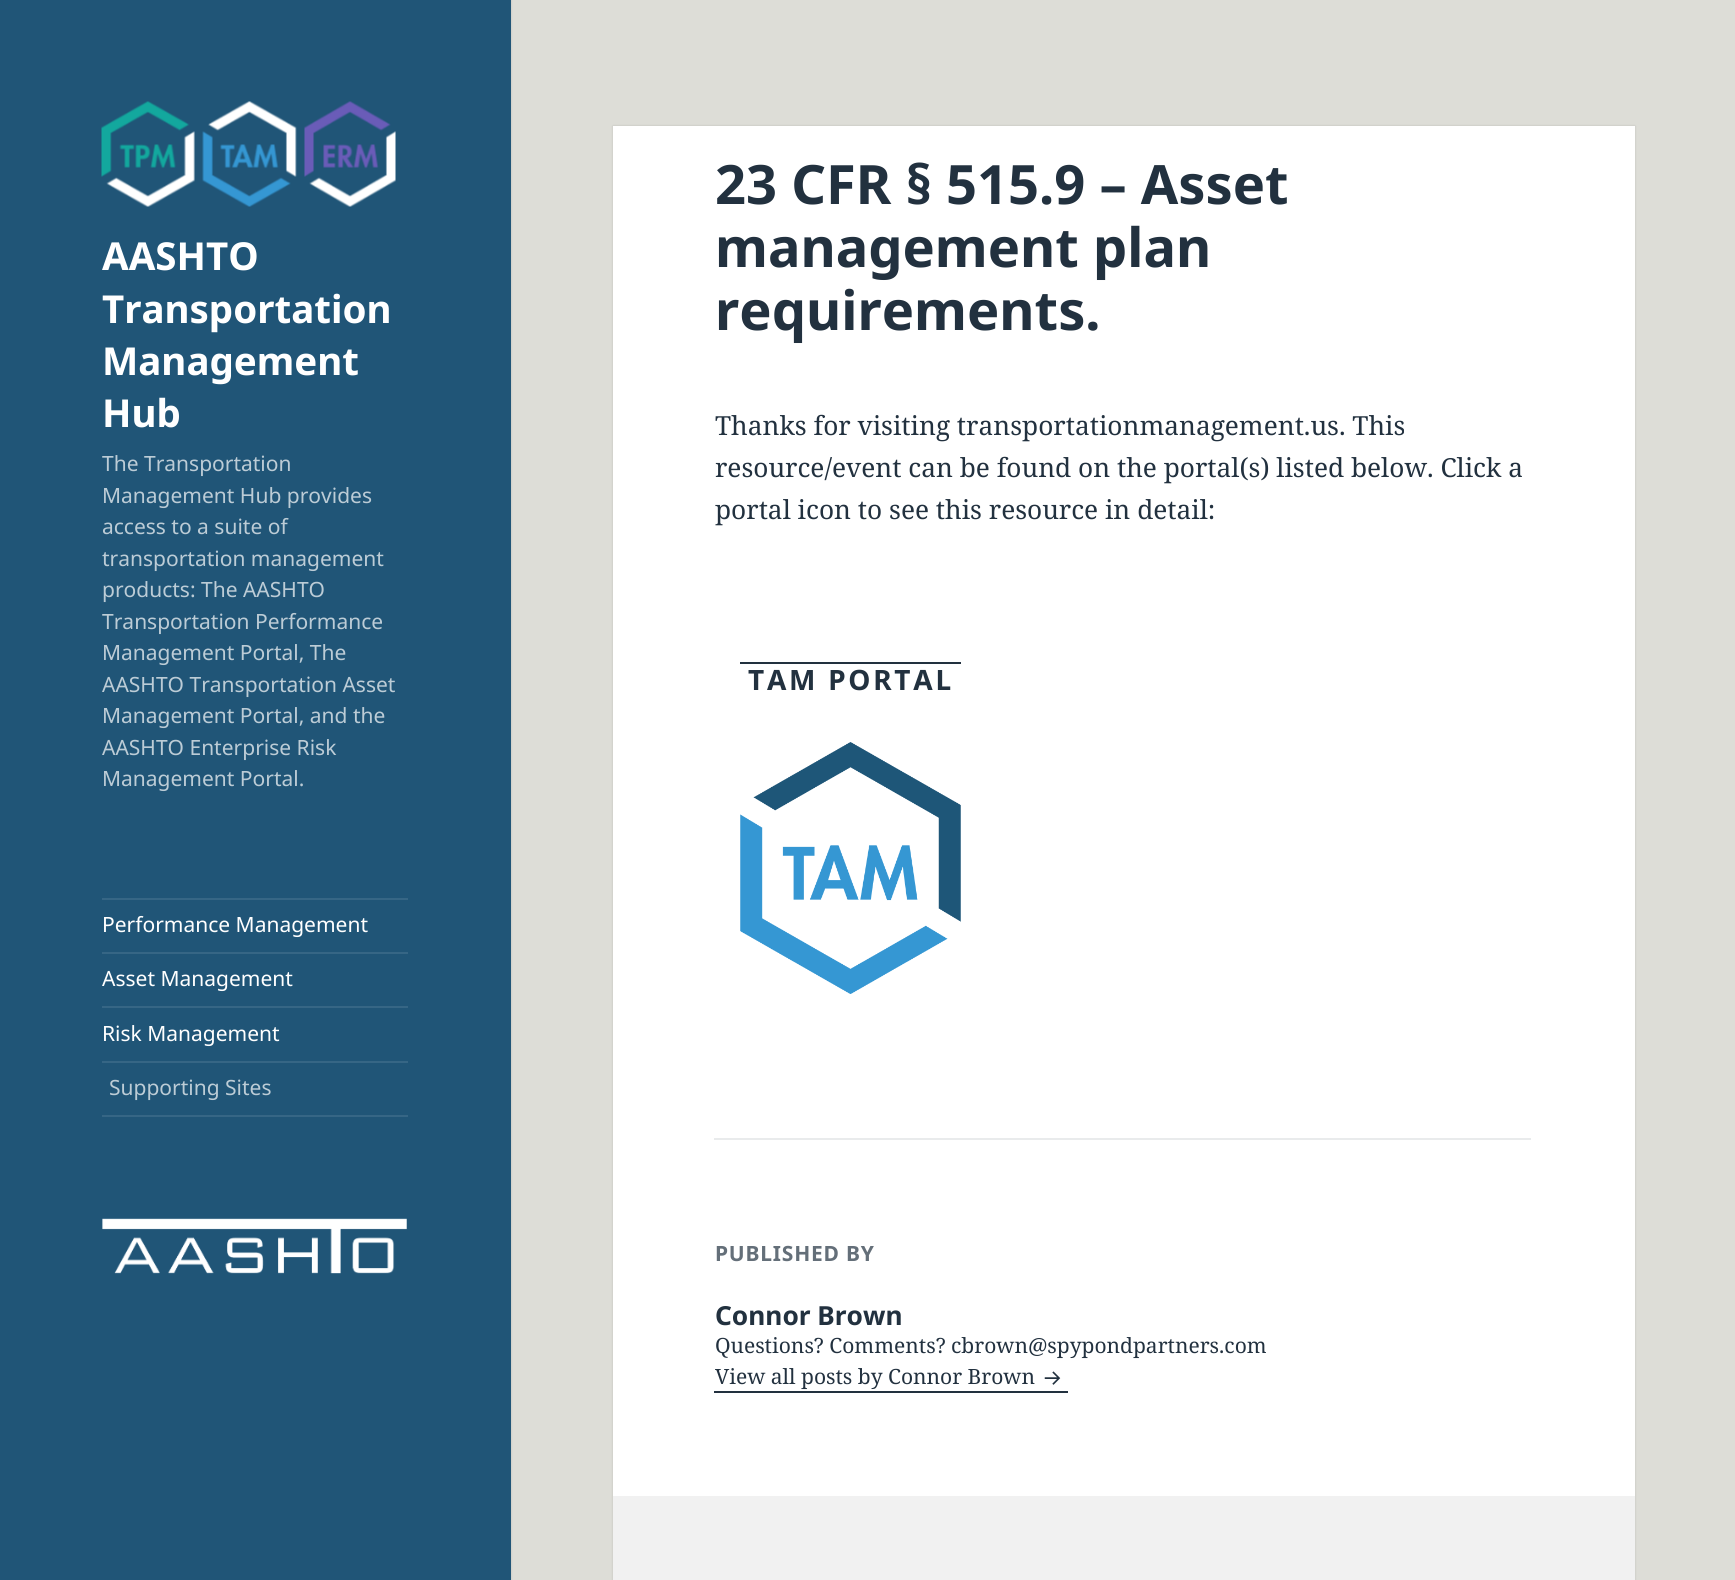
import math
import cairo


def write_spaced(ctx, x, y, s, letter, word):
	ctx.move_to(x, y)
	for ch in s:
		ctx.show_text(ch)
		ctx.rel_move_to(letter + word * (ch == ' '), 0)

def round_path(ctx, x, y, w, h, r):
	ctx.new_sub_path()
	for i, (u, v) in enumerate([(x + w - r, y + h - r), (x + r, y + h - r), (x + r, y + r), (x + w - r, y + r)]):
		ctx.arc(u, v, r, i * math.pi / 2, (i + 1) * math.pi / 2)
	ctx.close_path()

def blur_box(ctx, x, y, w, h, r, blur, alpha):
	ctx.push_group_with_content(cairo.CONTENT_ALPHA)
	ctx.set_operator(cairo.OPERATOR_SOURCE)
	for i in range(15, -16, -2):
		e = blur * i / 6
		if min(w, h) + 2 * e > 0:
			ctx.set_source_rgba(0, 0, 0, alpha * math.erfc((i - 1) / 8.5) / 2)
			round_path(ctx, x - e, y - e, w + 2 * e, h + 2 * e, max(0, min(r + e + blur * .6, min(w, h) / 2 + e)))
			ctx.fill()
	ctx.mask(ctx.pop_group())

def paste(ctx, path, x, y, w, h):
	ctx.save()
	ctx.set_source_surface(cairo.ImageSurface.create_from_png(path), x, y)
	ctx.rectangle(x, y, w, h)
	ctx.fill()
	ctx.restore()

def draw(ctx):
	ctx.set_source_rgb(0.867, 0.867, 0.843)
	ctx.paint()
	ctx.set_source_rgb(0, 0, 0)
	blur_box(ctx, 0, 0, 511, 1580, 0, 1, 0.15)
	ctx.set_source_rgb(0.125, 0.333, 0.467)
	ctx.rectangle(0, 0, 511, 1580)
	ctx.fill()
	paste(ctx, 'media/1.png', 101, 101, 94, 106)
	paste(ctx, 'media/2.png', 202, 101, 95, 106)
	paste(ctx, 'media/3.png', 304, 101, 92, 106)
	ctx.select_font_face('Noto Sans', cairo.FONT_SLANT_NORMAL, cairo.FONT_WEIGHT_BOLD)
	ctx.set_font_size(38.5)
	ctx.set_source_rgb(1, 1, 1)
	for x, y, s in [
		(102, 270, 'AASHTO'),
		(102, 323, 'Transportation'),
		(102, 375, 'Management'),
		(102, 427, 'Hub'),
	]:
		ctx.move_to(x, y)
		ctx.show_text(s)
	ctx.select_font_face('Noto Sans')
	ctx.set_font_size(21)
	ctx.set_source_rgb(0.737, 0.8, 0.839)
	for x, y, s in [
		(102, 471, 'The Transportation'),
		(102, 503, 'Management Hub provides'),
		(102, 534, 'access to a suite of'),
		(102, 566, 'transportation management'),
		(102, 597, 'products: The AASHTO'),
		(102, 629, 'Transportation Performance'),
		(102, 660, 'Management Portal, The'),
		(102, 692, 'AASHTO Transportation Asset'),
		(102, 723, 'Management Portal, and the'),
		(102, 755, 'AASHTO Enterprise Risk'),
		(102, 786, 'Management Portal.'),
	]:
		ctx.move_to(x, y)
		ctx.show_text(s)
	ctx.set_source_rgb(0.212, 0.4, 0.522)
	ctx.rectangle(102, 898, 306, 2)
	ctx.fill()
	ctx.rectangle(102, 1115, 306, 2)
	ctx.fill()
	ctx.set_source_rgb(1, 1, 1)
	ctx.move_to(102, 932)
	ctx.show_text('Performance Management')
	ctx.set_source_rgb(0.212, 0.4, 0.522)
	ctx.rectangle(102, 952, 306, 2)
	ctx.fill()
	ctx.set_source_rgb(1, 1, 1)
	ctx.move_to(102, 986)
	ctx.show_text('Asset Management')
	ctx.set_source_rgb(0.212, 0.4, 0.522)
	ctx.rectangle(102, 1006, 306, 2)
	ctx.fill()
	ctx.set_source_rgb(1, 1, 1)
	ctx.move_to(102, 1041)
	ctx.show_text('Risk Management')
	ctx.set_source_rgb(0.212, 0.4, 0.522)
	ctx.rectangle(102, 1061, 306, 2)
	ctx.fill()
	ctx.set_source_rgb(0.737, 0.8, 0.839)
	ctx.move_to(109, 1095)
	ctx.show_text('Supporting Sites')
	paste(ctx, 'media/4.png', 102, 1218, 305, 56)
	ctx.set_source_rgb(0, 0, 0)
	blur_box(ctx, 613, 126, 1022, 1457, 0, 1, 0.15)
	ctx.set_source_rgb(1, 1, 1)
	ctx.rectangle(613, 126, 1022, 1370)
	ctx.fill()
	ctx.select_font_face('Noto Sans', cairo.FONT_SLANT_NORMAL, cairo.FONT_WEIGHT_BOLD)
	ctx.set_font_size(54.25)
	ctx.set_source_rgb(0.133, 0.192, 0.247)
	for x, y, s in [
		(715, 204, '23 CFR § 515.9 – Asset'),
		(715, 267, 'management plan'),
		(715, 330, 'requirements.'),
	]:
		ctx.move_to(x, y)
		ctx.show_text(s)
	ctx.select_font_face('Noto Serif')
	ctx.set_font_size(26.25)
	for x, y, s in [
		(715, 435, 'Thanks for visiting transportationmanagement.us. This'),
		(715, 477, 'resource/event can be found on the portal(s) listed below. Click a'),
		(715, 519, 'portal icon to see this resource in detail:'),
	]:
		ctx.move_to(x, y)
		ctx.show_text(s)
	ctx.rectangle(740, 662, 221, 2)
	ctx.fill()
	ctx.select_font_face('Noto Sans', cairo.FONT_SLANT_NORMAL, cairo.FONT_WEIGHT_BOLD)
	ctx.set_font_size(28)
	write_spaced(ctx, 748, 690, 'TAM PORTAL', 2.75, 0)
	paste(ctx, 'media/5.png', 740, 742, 221, 252)
	ctx.set_source_rgb(0.914, 0.918, 0.925)
	ctx.rectangle(714, 1138, 817, 2)
	ctx.fill()
	ctx.set_font_size(21)
	ctx.set_source_rgb(0.392, 0.435, 0.475)
	write_spaced(ctx, 715, 1261, 'PUBLISHED BY', 0.8, 0)
	ctx.set_font_size(26.25)
	ctx.set_source_rgb(0.133, 0.192, 0.247)
	ctx.move_to(715, 1325)
	ctx.show_text('Connor Brown')
	ctx.select_font_face('Noto Serif')
	ctx.set_font_size(21)
	ctx.move_to(715, 1353)
	ctx.show_text('Questions? Comments? cbrown@spypondpartners.com')
	ctx.rectangle(714, 1391, 354, 2)
	ctx.fill()
	ctx.move_to(715, 1384)
	ctx.show_text('View all posts by Connor Brown')
	paste(ctx, 'media/6.png', 1044, 1371, 17, 14)
	ctx.set_source_rgb(0.945, 0.945, 0.945)
	ctx.rectangle(613, 1496, 1022, 84)
	ctx.fill()


surface = cairo.ImageSurface(cairo.FORMAT_RGB24, 1735, 1580)
ctx = cairo.Context(surface)
options = cairo.FontOptions()
options.set_hint_metrics(cairo.HINT_METRICS_OFF)
options.set_hint_style(cairo.HINT_STYLE_NONE)
ctx.set_font_options(options)
ctx.set_miter_limit(4)
draw(ctx)
surface.write_to_png('image.png')
